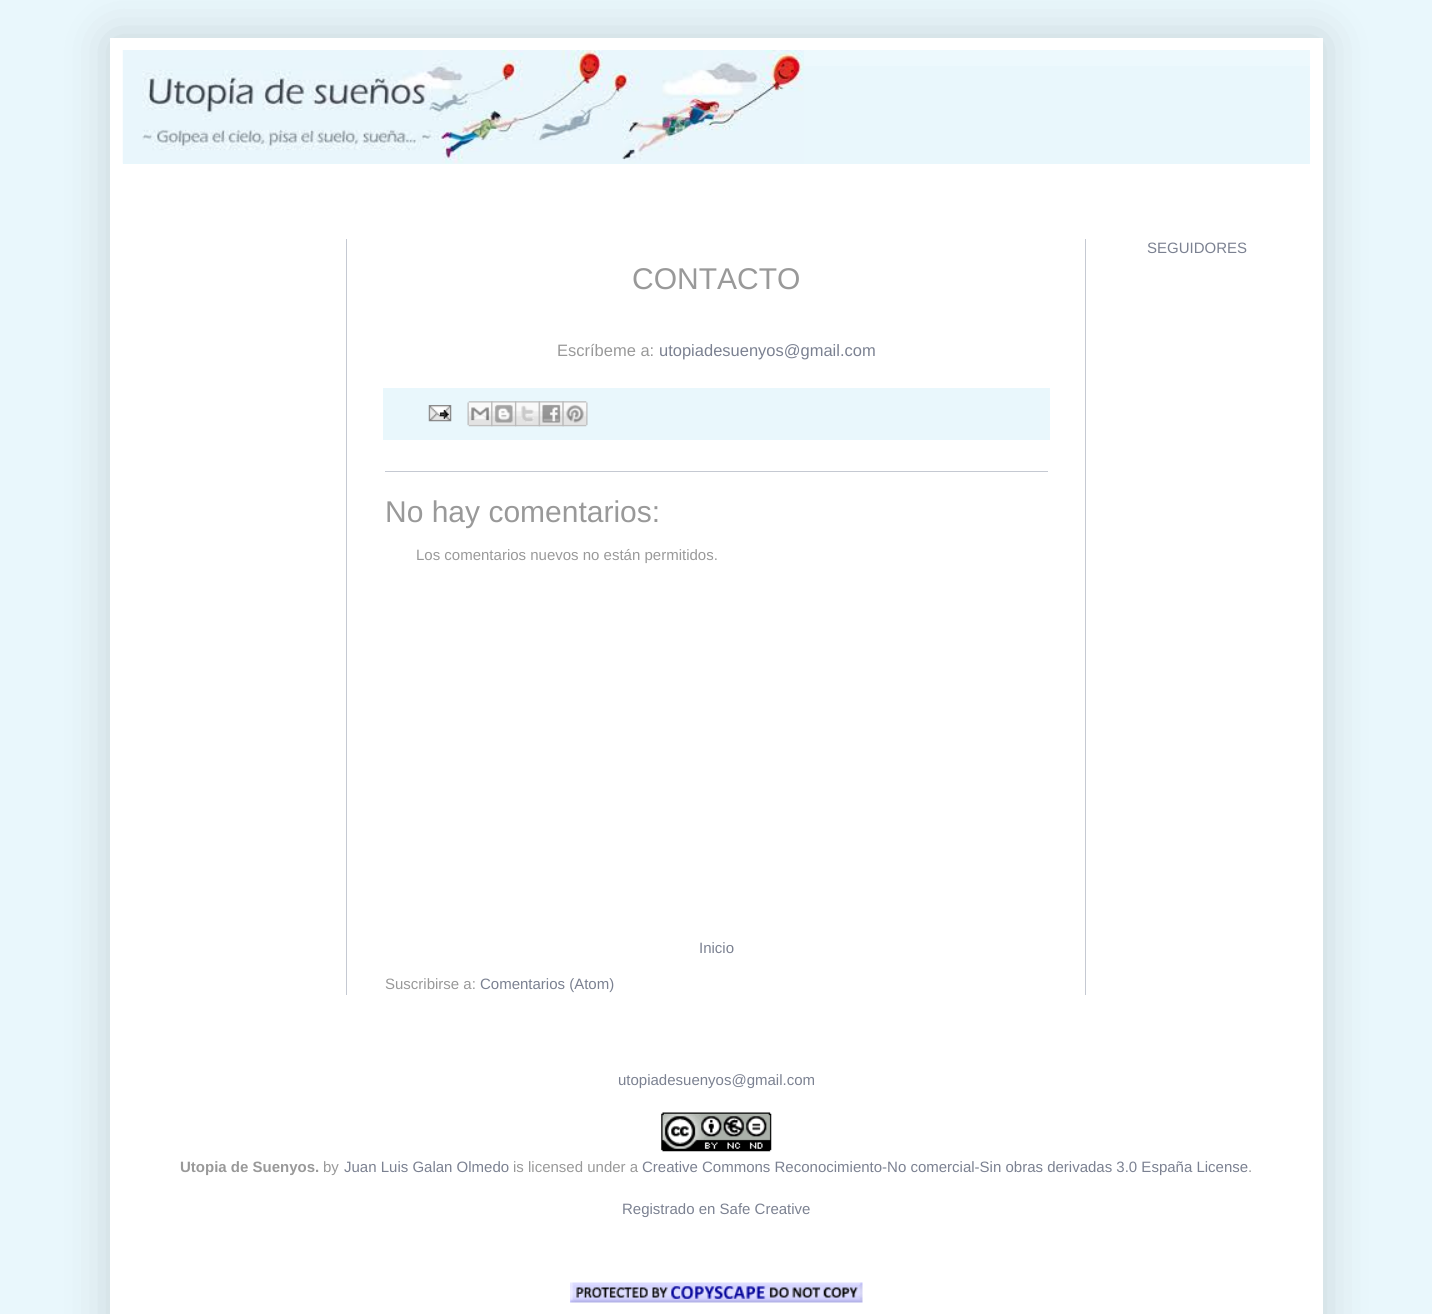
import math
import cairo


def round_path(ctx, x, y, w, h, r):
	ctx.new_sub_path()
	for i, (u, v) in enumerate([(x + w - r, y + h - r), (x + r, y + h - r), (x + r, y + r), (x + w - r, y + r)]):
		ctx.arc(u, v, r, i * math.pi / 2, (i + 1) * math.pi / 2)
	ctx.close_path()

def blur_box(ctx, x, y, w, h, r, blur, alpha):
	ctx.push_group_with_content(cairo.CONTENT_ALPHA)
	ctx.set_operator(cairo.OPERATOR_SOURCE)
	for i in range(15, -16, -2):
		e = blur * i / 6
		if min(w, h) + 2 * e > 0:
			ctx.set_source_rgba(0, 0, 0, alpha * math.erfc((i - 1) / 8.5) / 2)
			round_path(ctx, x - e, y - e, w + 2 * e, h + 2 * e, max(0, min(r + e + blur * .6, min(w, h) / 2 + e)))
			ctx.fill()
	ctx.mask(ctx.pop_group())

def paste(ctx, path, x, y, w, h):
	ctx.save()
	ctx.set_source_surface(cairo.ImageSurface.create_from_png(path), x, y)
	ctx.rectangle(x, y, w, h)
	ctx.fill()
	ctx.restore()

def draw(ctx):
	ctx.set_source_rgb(0.914, 0.965, 0.988)
	ctx.paint()
	ctx.set_source_rgb(0, 0, 0)
	blur_box(ctx, 110, 38, 1213, 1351, 0, 25, 0.15)
	ctx.set_source_rgb(1, 1, 1)
	ctx.rectangle(110, 38, 1213, 1276)
	ctx.fill()
	ctx.set_source_rgb(0.914, 0.965, 0.988)
	ctx.rectangle(123, 66, 1187, 98)
	ctx.fill()
	ctx.set_source_rgb(0.929, 0.973, 0.992)
	ctx.rectangle(804, 50, 506, 16)
	ctx.fill()
	paste(ctx, 'media/1.png', 122, 50, 682, 114)
	ctx.set_source_rgb(0.773, 0.788, 0.824)
	ctx.rectangle(346, 239, 1, 756)
	ctx.fill()
	ctx.rectangle(1085, 239, 1, 756)
	ctx.fill()
	ctx.select_font_face('Liberation Sans')
	ctx.set_font_size(15)
	ctx.set_source_rgb(0.482, 0.506, 0.569)
	ctx.move_to(1147, 253)
	ctx.show_text('SEGUIDORES')
	ctx.set_font_size(30)
	ctx.set_source_rgb(0.6, 0.6, 0.6)
	ctx.move_to(632, 289)
	ctx.show_text('CONTACTO')
	ctx.set_font_size(16.5)
	ctx.move_to(557, 356)
	ctx.show_text('Escríbeme a:')
	ctx.set_source_rgb(0.482, 0.506, 0.569)
	ctx.move_to(659, 356)
	ctx.show_text('utopiadesuenyos@gmail.com')
	ctx.set_source_rgb(0.914, 0.965, 0.988)
	ctx.rectangle(383, 388, 667, 52)
	ctx.fill()
	paste(ctx, 'media/2.png', 428, 405, 24, 17)
	paste(ctx, 'media/3.png', 467, 401, 26, 26)
	paste(ctx, 'media/4.png', 491, 401, 26, 26)
	paste(ctx, 'media/5.png', 515, 401, 25, 26)
	paste(ctx, 'media/6.png', 538, 401, 26, 26)
	paste(ctx, 'media/7.png', 562, 401, 26, 26)
	ctx.set_source_rgb(0.773, 0.788, 0.824)
	ctx.rectangle(385, 471, 663, 1)
	ctx.fill()
	ctx.set_font_size(30)
	ctx.set_source_rgb(0.6, 0.6, 0.6)
	ctx.move_to(385, 522)
	ctx.show_text('No hay comentarios:')
	ctx.set_font_size(15)
	ctx.move_to(416, 560)
	ctx.show_text('Los comentarios nuevos no están permitidos.')
	ctx.set_source_rgb(0.482, 0.506, 0.569)
	ctx.move_to(699, 953)
	ctx.show_text('Inicio')
	ctx.set_source_rgb(0.6, 0.6, 0.6)
	ctx.move_to(385, 989)
	ctx.show_text('Suscribirse a:')
	ctx.set_source_rgb(0.482, 0.506, 0.569)
	ctx.move_to(480, 989)
	ctx.show_text('Comentarios (Atom)')
	ctx.move_to(618, 1085)
	ctx.show_text('utopiadesuenyos@gmail.com')
	paste(ctx, 'media/8.png', 661, 1112, 111, 40)
	ctx.select_font_face('Liberation Sans', cairo.FONT_SLANT_NORMAL, cairo.FONT_WEIGHT_BOLD)
	ctx.set_source_rgb(0.6, 0.6, 0.6)
	ctx.move_to(180, 1172)
	ctx.show_text('Utopia de Suenyos.')
	ctx.select_font_face('Liberation Sans')
	ctx.move_to(323, 1172)
	ctx.show_text('by')
	ctx.set_source_rgb(0.482, 0.506, 0.569)
	ctx.move_to(344, 1172)
	ctx.show_text('Juan Luis Galan Olmedo')
	ctx.set_source_rgb(0.6, 0.6, 0.6)
	ctx.move_to(513, 1172)
	ctx.show_text('is licensed under a')
	ctx.set_source_rgb(0.482, 0.506, 0.569)
	ctx.move_to(642, 1172)
	ctx.show_text('Creative Commons Reconocimiento-No comercial-Sin obras derivadas 3.0 España License')
	ctx.set_source_rgb(0.6, 0.6, 0.6)
	ctx.move_to(1248, 1172)
	ctx.show_text('.')
	ctx.set_source_rgb(0.482, 0.506, 0.569)
	ctx.move_to(622, 1214)
	ctx.show_text('Registrado en Safe Creative')
	paste(ctx, 'media/9.png', 570, 1282, 293, 21)


surface = cairo.ImageSurface(cairo.FORMAT_RGB24, 1432, 1314)
ctx = cairo.Context(surface)
options = cairo.FontOptions()
options.set_hint_metrics(cairo.HINT_METRICS_OFF)
options.set_hint_style(cairo.HINT_STYLE_NONE)
ctx.set_font_options(options)
ctx.set_miter_limit(4)
draw(ctx)
surface.write_to_png('image.png')
